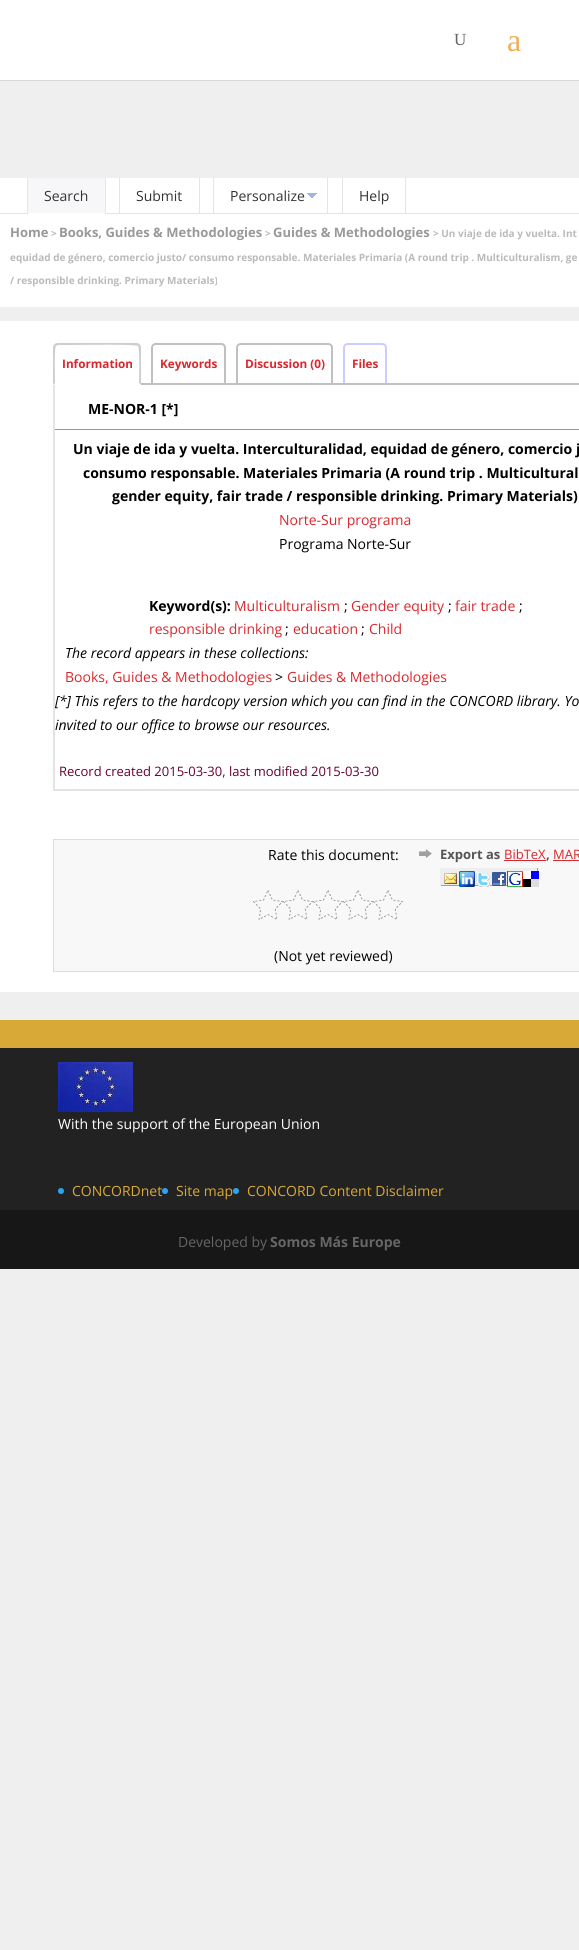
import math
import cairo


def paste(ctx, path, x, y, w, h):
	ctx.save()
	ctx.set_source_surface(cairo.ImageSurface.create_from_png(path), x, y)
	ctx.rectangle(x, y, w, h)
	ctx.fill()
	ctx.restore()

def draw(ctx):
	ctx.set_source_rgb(0.937, 0.937, 0.937)
	ctx.paint()
	ctx.set_source_rgb(0.843, 0.843, 0.843)
	ctx.rectangle(0, 80, 579, 1)
	ctx.fill()
	ctx.set_source_rgb(1, 1, 1)
	ctx.rectangle(0, 0, 579, 80)
	ctx.fill()
	ctx.select_font_face('Liberation Serif')
	ctx.set_font_size(17)
	ctx.set_source_rgb(0.4, 0.4, 0.4)
	ctx.move_to(454, 45)
	ctx.show_text('U')
	ctx.set_font_size(32)
	ctx.set_source_rgb(0.929, 0.69, 0.349)
	ctx.move_to(507, 51)
	ctx.show_text('a')
	ctx.set_source_rgb(1, 1, 1)
	ctx.rectangle(0, 178, 579, 129)
	ctx.fill()
	ctx.set_source_rgb(0.965, 0.965, 0.98)
	ctx.rectangle(28, 178, 77, 35)
	ctx.fill()
	ctx.set_source_rgb(0.898, 0.898, 0.898)
	ctx.rectangle(405, 213, 174, 1)
	ctx.rectangle(405, 178, 1, 36)
	ctx.rectangle(342, 213, 64, 1)
	ctx.rectangle(342, 178, 1, 36)
	ctx.rectangle(327, 213, 16, 1)
	ctx.rectangle(327, 178, 1, 36)
	ctx.rectangle(213, 213, 115, 1)
	ctx.rectangle(213, 178, 1, 36)
	ctx.rectangle(199, 213, 15, 1)
	ctx.rectangle(199, 178, 1, 36)
	ctx.rectangle(119, 213, 81, 1)
	ctx.rectangle(119, 178, 1, 36)
	ctx.rectangle(105, 213, 15, 1)
	ctx.rectangle(105, 178, 1, 36)
	ctx.rectangle(27, 178, 1, 36)
	ctx.fill()
	ctx.select_font_face('Open Sans')
	ctx.set_font_size(14)
	ctx.set_source_rgb(0.2, 0.2, 0.2)
	for x, y, s in [
		(44, 201, 'Search'),
		(136, 201, 'Submit'),
		(230, 201, 'Personalize'),
	]:
		ctx.move_to(x, y)
		ctx.show_text(s)
	paste(ctx, 'media/1.png', 307, 193, 10, 5)
	ctx.move_to(359, 201)
	ctx.show_text('Help')
	ctx.set_source_rgb(0.898, 0.898, 0.898)
	ctx.rectangle(0, 213, 28, 1)
	ctx.fill()
	ctx.select_font_face('Open Sans', cairo.FONT_SLANT_NORMAL, cairo.FONT_WEIGHT_BOLD)
	ctx.set_font_size(13)
	ctx.set_source_rgb(0.6, 0.6, 0.6)
	ctx.move_to(10, 237)
	ctx.show_text('Home')
	ctx.set_font_size(10)
	ctx.set_source_rgb(0.729, 0.729, 0.729)
	ctx.move_to(51, 237)
	ctx.show_text('>')
	ctx.set_font_size(13)
	ctx.set_source_rgb(0.6, 0.6, 0.6)
	ctx.move_to(59, 237)
	ctx.show_text('Books, Guides & Methodologies')
	ctx.set_font_size(10)
	ctx.set_source_rgb(0.729, 0.729, 0.729)
	ctx.move_to(265, 237)
	ctx.show_text('>')
	ctx.set_font_size(13)
	ctx.set_source_rgb(0.6, 0.6, 0.6)
	ctx.move_to(273, 237)
	ctx.show_text('Guides & Methodologies')
	ctx.set_font_size(10)
	ctx.set_source_rgb(0.729, 0.729, 0.729)
	for x, y, s in [
		(433, 237, '> Un viaje de ida y vuelta. Int'),
		(10, 261, 'equidad de género, comercio justo/ consumo responsable. Materiales Primaria (A round trip . Multiculturalism, ge'),
		(10, 284, '/ responsible drinking. Primary Materials)'),
	]:
		ctx.move_to(x, y)
		ctx.show_text(s)
	ctx.set_source_rgb(1, 1, 1)
	ctx.rectangle(0, 321, 579, 671)
	ctx.fill()
	ctx.set_source_rgb(0.753, 0.753, 0.753)
	ctx.rectangle(141, 383, 438, 2)
	ctx.fill()
	ctx.set_source_rgb(0.804, 0.804, 0.804)
	ctx.new_path()
	ctx.move_to(58, 343)
	ctx.curve_to(56, 343, 55, 344, 54, 344)
	ctx.line_to(56, 346)
	ctx.line_to(58, 345)
	ctx.line_to(71, 345)
	ctx.curve_to(78, 345, 136, 344, 138, 346)
	ctx.line_to(140, 344)
	ctx.curve_to(139, 344, 138, 343, 136, 343)
	ctx.close_path()
	ctx.fill()
	ctx.new_path()
	ctx.move_to(141, 385)
	ctx.line_to(141, 348)
	ctx.curve_to(141, 346, 140, 345, 140, 344)
	ctx.line_to(138, 346)
	ctx.curve_to(140, 348, 139, 378, 139, 383)
	ctx.close_path()
	ctx.fill()
	ctx.set_source_rgb(1, 1, 1)
	ctx.new_path()
	ctx.move_to(141, 385)
	ctx.line_to(139, 383)
	ctx.line_to(55, 383)
	ctx.line_to(53, 385)
	ctx.close_path()
	ctx.fill()
	ctx.set_source_rgb(0.804, 0.804, 0.804)
	ctx.new_path()
	ctx.move_to(53, 385)
	ctx.line_to(55, 383)
	ctx.curve_to(55, 378, 54, 348, 56, 346)
	ctx.line_to(54, 344)
	ctx.curve_to(54, 345, 53, 346, 53, 348)
	ctx.close_path()
	ctx.fill()
	ctx.set_font_size(11.75)
	ctx.set_source_rgb(0.851, 0.153, 0.18)
	ctx.move_to(62, 368)
	ctx.show_text('Information')
	ctx.set_source_rgb(0.753, 0.753, 0.753)
	ctx.set_fill_rule(cairo.FILL_RULE_EVEN_ODD)
	ctx.new_path()
	ctx.move_to(156, 343)
	ctx.line_to(221, 343)
	ctx.curve_to(224, 343, 226, 345, 226, 348)
	ctx.line_to(226, 383)
	ctx.line_to(151, 383)
	ctx.line_to(151, 348)
	ctx.curve_to(151, 345, 153, 343, 156, 343)
	ctx.close_path()
	ctx.move_to(156, 345)
	ctx.line_to(221, 345)
	ctx.curve_to(223, 345, 224, 346, 224, 348)
	ctx.line_to(224, 383)
	ctx.line_to(153, 383)
	ctx.line_to(153, 348)
	ctx.curve_to(153, 346, 154, 345, 156, 345)
	ctx.close_path()
	ctx.fill()
	ctx.set_source_rgb(0.851, 0.153, 0.18)
	ctx.move_to(160, 368)
	ctx.show_text('Keywords')
	ctx.set_source_rgb(0.753, 0.753, 0.753)
	ctx.new_path()
	ctx.move_to(241, 343)
	ctx.line_to(328, 343)
	ctx.curve_to(331, 343, 333, 345, 333, 348)
	ctx.line_to(333, 383)
	ctx.line_to(236, 383)
	ctx.line_to(236, 348)
	ctx.curve_to(236, 345, 238, 343, 241, 343)
	ctx.close_path()
	ctx.move_to(241, 345)
	ctx.line_to(328, 345)
	ctx.curve_to(330, 345, 331, 346, 331, 348)
	ctx.line_to(331, 383)
	ctx.line_to(238, 383)
	ctx.line_to(238, 348)
	ctx.curve_to(238, 346, 239, 345, 241, 345)
	ctx.close_path()
	ctx.fill()
	ctx.set_source_rgb(0.851, 0.153, 0.18)
	ctx.move_to(245, 368)
	ctx.show_text('Discussion (0)')
	ctx.set_source_rgb(0.8, 0.8, 1)
	ctx.new_path()
	ctx.move_to(348, 343)
	ctx.line_to(382, 343)
	ctx.curve_to(385, 343, 387, 345, 387, 348)
	ctx.line_to(387, 383)
	ctx.line_to(343, 383)
	ctx.line_to(343, 348)
	ctx.curve_to(343, 345, 345, 343, 348, 343)
	ctx.close_path()
	ctx.move_to(348, 345)
	ctx.line_to(382, 345)
	ctx.curve_to(384, 345, 385, 346, 385, 348)
	ctx.line_to(385, 383)
	ctx.line_to(345, 383)
	ctx.line_to(345, 348)
	ctx.curve_to(345, 346, 346, 345, 348, 345)
	ctx.close_path()
	ctx.fill()
	ctx.set_source_rgb(0.851, 0.153, 0.18)
	ctx.move_to(352, 368)
	ctx.show_text('Files')
	ctx.set_source_rgb(0.894, 0.894, 0.894)
	ctx.rectangle(53, 789, 526, 2)
	ctx.fill()
	ctx.rectangle(53, 385, 2, 406)
	ctx.fill()
	ctx.set_font_size(14)
	ctx.set_source_rgb(0, 0, 0)
	ctx.move_to(88, 414)
	ctx.show_text('ME-NOR-1 [*]')
	ctx.set_source_rgb(0.6, 0.6, 0.6)
	ctx.rectangle(55, 429, 524, 1)
	ctx.fill()
	ctx.set_source_rgb(0, 0, 0)
	for x, y, s in [
		(73, 454, 'Un viaje de ida y vuelta. Interculturalidad, equidad de género, comercio j'),
		(83, 478, 'consumo responsable. Materiales Primaria (A round trip . Multicultural'),
		(112, 501, 'gender equity, fair trade / responsible drinking. Primary Materials)'),
	]:
		ctx.move_to(x, y)
		ctx.show_text(s)
	ctx.select_font_face('Open Sans')
	ctx.set_source_rgb(0.851, 0.153, 0.18)
	ctx.move_to(279, 525)
	ctx.show_text('Norte-Sur programa')
	ctx.set_source_rgb(0, 0, 0)
	ctx.move_to(279, 549)
	ctx.show_text('Programa Norte-Sur')
	ctx.select_font_face('Open Sans', cairo.FONT_SLANT_NORMAL, cairo.FONT_WEIGHT_BOLD)
	ctx.move_to(149, 611)
	ctx.show_text('Keyword(s):')
	ctx.select_font_face('Open Sans')
	ctx.set_source_rgb(0.851, 0.153, 0.18)
	ctx.move_to(234, 611)
	ctx.show_text('Multiculturalism')
	ctx.set_source_rgb(0, 0, 0)
	ctx.move_to(344, 611)
	ctx.show_text(';')
	ctx.set_source_rgb(0.851, 0.153, 0.18)
	ctx.move_to(351, 611)
	ctx.show_text('Gender equity')
	ctx.set_source_rgb(0, 0, 0)
	ctx.move_to(448, 611)
	ctx.show_text(';')
	ctx.set_source_rgb(0.851, 0.153, 0.18)
	ctx.move_to(455, 611)
	ctx.show_text('fair trade')
	ctx.set_source_rgb(0, 0, 0)
	ctx.move_to(519, 611)
	ctx.show_text(';')
	ctx.set_source_rgb(0.851, 0.153, 0.18)
	ctx.move_to(149, 634)
	ctx.show_text('responsible drinking')
	ctx.set_source_rgb(0, 0, 0)
	ctx.move_to(285, 634)
	ctx.show_text(';')
	ctx.set_source_rgb(0.851, 0.153, 0.18)
	ctx.move_to(293, 634)
	ctx.show_text('education')
	ctx.set_source_rgb(0, 0, 0)
	ctx.move_to(361, 634)
	ctx.show_text(';')
	ctx.set_source_rgb(0.851, 0.153, 0.18)
	ctx.move_to(369, 634)
	ctx.show_text('Child')
	ctx.select_font_face('Open Sans', cairo.FONT_SLANT_ITALIC)
	ctx.set_source_rgb(0, 0, 0)
	ctx.move_to(65, 658)
	ctx.show_text('The record appears in these collections:')
	ctx.select_font_face('Open Sans')
	ctx.set_source_rgb(0.851, 0.153, 0.18)
	ctx.move_to(65, 682)
	ctx.show_text('Books, Guides & Methodologies')
	ctx.set_source_rgb(0, 0, 0)
	ctx.move_to(275, 682)
	ctx.show_text('>')
	ctx.set_source_rgb(0.851, 0.153, 0.18)
	ctx.move_to(287, 682)
	ctx.show_text('Guides & Methodologies')
	ctx.select_font_face('Open Sans', cairo.FONT_SLANT_ITALIC)
	ctx.set_source_rgb(0, 0, 0)
	ctx.move_to(55, 706)
	ctx.show_text('[*] This refers to the hardcopy version which you can find in the CONCORD library. Yo')
	ctx.move_to(55, 730)
	ctx.show_text('invited to our office to browse our resources.')
	ctx.select_font_face('Open Sans')
	ctx.set_font_size(13)
	ctx.set_source_rgb(0.4, 0, 0.2)
	ctx.move_to(59, 776)
	ctx.show_text('Record created 2015-03-30, last modified 2015-03-30')
	ctx.set_source_rgb(0.969, 0.969, 0.969)
	ctx.rectangle(53.5, 839.5, 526, 132)
	ctx.fill_preserve()
	ctx.set_source_rgb(0.867, 0.867, 0.867)
	ctx.set_line_width(1)
	ctx.stroke()
	ctx.set_font_size(14)
	ctx.set_source_rgb(0, 0, 0)
	ctx.move_to(268, 860)
	ctx.show_text('Rate this document:')
	paste(ctx, 'media/2.png', 253, 890, 30, 30)
	paste(ctx, 'media/2.png', 283, 890, 30, 30)
	paste(ctx, 'media/2.png', 313, 890, 30, 30)
	paste(ctx, 'media/2.png', 343, 890, 30, 30)
	paste(ctx, 'media/2.png', 373, 890, 30, 30)
	ctx.move_to(274, 961)
	ctx.show_text('(Not yet reviewed)')
	paste(ctx, 'media/3.png', 419, 849, 13, 10)
	ctx.select_font_face('Open Sans', cairo.FONT_SLANT_NORMAL, cairo.FONT_WEIGHT_BOLD)
	ctx.set_font_size(13)
	ctx.set_source_rgb(0.333, 0.333, 0.333)
	ctx.move_to(440, 859)
	ctx.show_text('Export as')
	ctx.select_font_face('Open Sans')
	ctx.set_source_rgb(0.851, 0.153, 0.18)
	ctx.move_to(504, 859)
	ctx.show_text('BibTeX')
	ctx.rectangle(504, 860, 42, 1)
	ctx.fill()
	ctx.select_font_face('Open Sans', cairo.FONT_SLANT_NORMAL, cairo.FONT_WEIGHT_BOLD)
	ctx.set_source_rgb(0.333, 0.333, 0.333)
	ctx.move_to(546, 859)
	ctx.show_text(',')
	ctx.select_font_face('Open Sans')
	ctx.set_source_rgb(0.851, 0.153, 0.18)
	ctx.move_to(553, 859)
	ctx.show_text('MAR')
	ctx.rectangle(553, 860, 26, 1)
	ctx.fill()
	ctx.set_source_rgb(0.933, 0.933, 0.933)
	ctx.rectangle(441, 868, 96, 17)
	ctx.fill()
	ctx.set_source_rgb(0.624, 0.624, 0.624)
	ctx.rectangle(537, 868, 1, 3)
	ctx.rectangle(440, 885, 67, 1)
	ctx.fill()
	ctx.set_source_rgb(0.933, 0.933, 0.933)
	ctx.rectangle(440, 868, 1, 18)
	ctx.fill()
	paste(ctx, 'media/4.png', 444, 873, 13, 11)
	paste(ctx, 'media/5.png', 459, 871, 16, 16)
	paste(ctx, 'media/6.png', 476, 871, 14, 16)
	paste(ctx, 'media/7.png', 492, 872, 14, 14)
	paste(ctx, 'media/8.png', 507, 871, 16, 16)
	paste(ctx, 'media/9.png', 523, 871, 16, 16)
	ctx.set_source_rgb(0.851, 0.663, 0.22)
	ctx.rectangle(0, 1020, 579, 28)
	ctx.fill()
	ctx.set_source_rgb(0.133, 0.133, 0.133)
	ctx.rectangle(0, 1048, 579, 162)
	ctx.fill()
	paste(ctx, 'media/10.png', 58, 1062, 75, 50)
	ctx.set_font_size(14)
	ctx.set_source_rgb(1, 1, 1)
	ctx.move_to(58, 1129)
	ctx.show_text('With the support of the European Union')
	ctx.set_source_rgb(0.18, 0.639, 0.949)
	ctx.new_path()
	ctx.arc(61, 1191, 3, 0, 2 * math.pi)
	ctx.fill()
	ctx.set_source_rgb(0.851, 0.663, 0.22)
	ctx.move_to(72, 1196)
	ctx.show_text('CONCORDnet')
	ctx.set_source_rgb(0.18, 0.639, 0.949)
	ctx.new_path()
	ctx.arc(165, 1191, 3, 0, 2 * math.pi)
	ctx.fill()
	ctx.set_source_rgb(0.851, 0.663, 0.22)
	ctx.move_to(176, 1196)
	ctx.show_text('Site map')
	ctx.set_source_rgb(0.18, 0.639, 0.949)
	ctx.new_path()
	ctx.arc(236, 1191, 3, 0, 2 * math.pi)
	ctx.fill()
	ctx.set_source_rgb(0.851, 0.663, 0.22)
	ctx.move_to(247, 1196)
	ctx.show_text('CONCORD Content Disclaimer')
	ctx.set_source_rgb(0.09, 0.09, 0.09)
	ctx.rectangle(0, 1210, 579, 59)
	ctx.fill()
	ctx.set_source_rgb(0.4, 0.4, 0.4)
	ctx.move_to(178, 1247)
	ctx.show_text('Developed by')
	ctx.select_font_face('Open Sans', cairo.FONT_SLANT_NORMAL, cairo.FONT_WEIGHT_BOLD)
	ctx.move_to(270, 1247)
	ctx.show_text('Somos Más Europe')


surface = cairo.ImageSurface(cairo.FORMAT_RGB24, 579, 1950)
ctx = cairo.Context(surface)
options = cairo.FontOptions()
options.set_hint_metrics(cairo.HINT_METRICS_OFF)
options.set_hint_style(cairo.HINT_STYLE_NONE)
ctx.set_font_options(options)
ctx.set_miter_limit(4)
draw(ctx)
surface.write_to_png('image.png')
